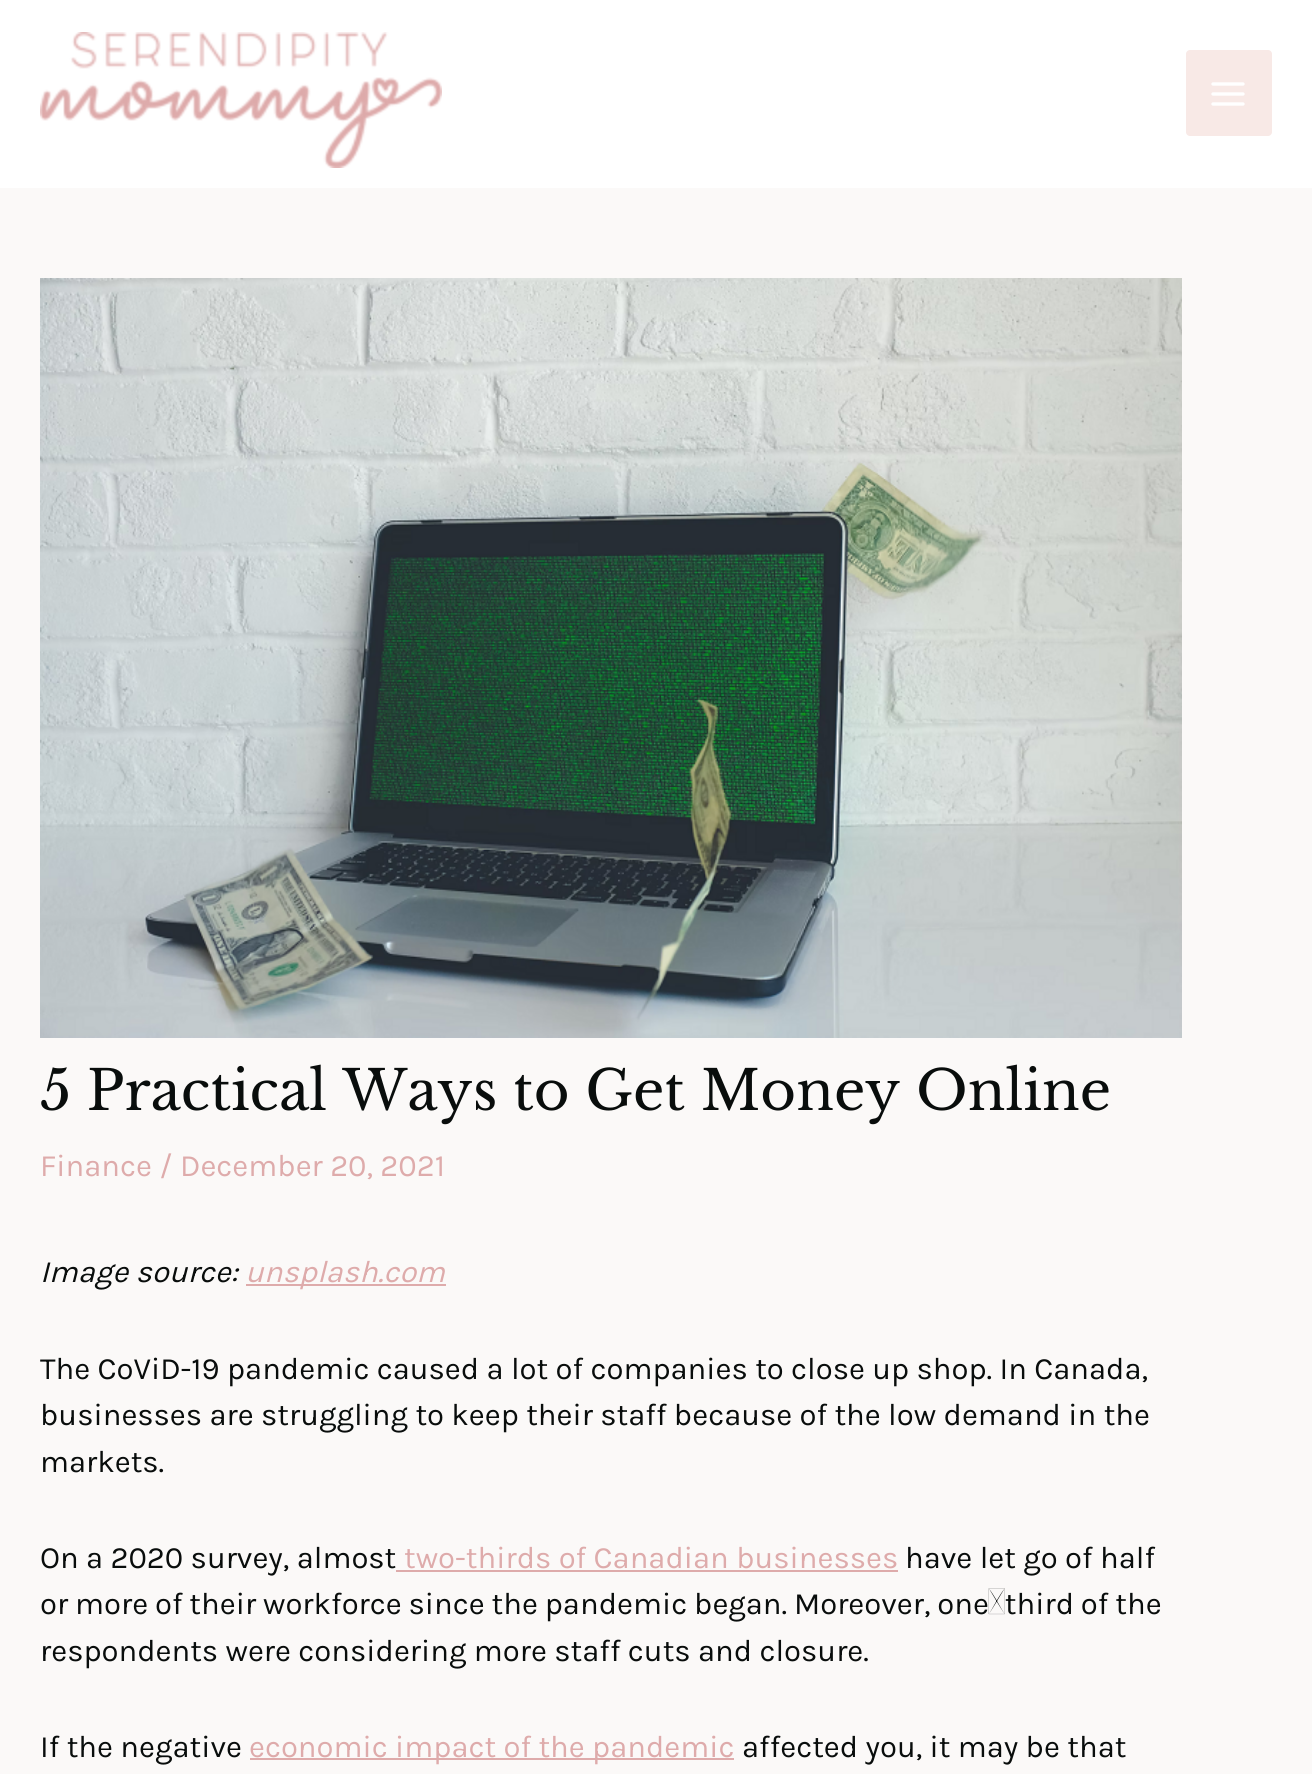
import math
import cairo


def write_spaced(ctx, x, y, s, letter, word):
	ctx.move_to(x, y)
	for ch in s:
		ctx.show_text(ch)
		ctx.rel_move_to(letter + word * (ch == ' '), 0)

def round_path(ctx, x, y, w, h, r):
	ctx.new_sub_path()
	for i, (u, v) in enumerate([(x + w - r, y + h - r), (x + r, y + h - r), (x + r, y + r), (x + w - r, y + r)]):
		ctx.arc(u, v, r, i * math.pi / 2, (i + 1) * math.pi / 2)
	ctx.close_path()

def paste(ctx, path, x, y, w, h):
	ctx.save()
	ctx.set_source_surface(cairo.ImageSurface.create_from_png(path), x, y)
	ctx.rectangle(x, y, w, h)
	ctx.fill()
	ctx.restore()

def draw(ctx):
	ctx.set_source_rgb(0.984, 0.973, 0.969)
	ctx.paint()
	ctx.set_source_rgb(1, 1, 1)
	ctx.rectangle(0, 0, 1312, 188)
	ctx.fill()
	paste(ctx, 'media/1.png', 40, 32, 402, 136)
	ctx.set_source_rgb(0.969, 0.914, 0.902)
	round_path(ctx, 1186, 50, 86, 86, 4)
	ctx.fill()
	paste(ctx, 'media/2.png', 1211, 82, 34, 24)
	paste(ctx, 'media/3.png', 40, 278, 1142, 760)
	ctx.select_font_face('Libre Baskerville')
	ctx.set_font_size(54.75)
	ctx.set_source_rgb(0.039, 0.051, 0.047)
	ctx.move_to(40, 1110)
	ctx.show_text('5 Practical Ways to Get Money Online')
	ctx.select_font_face('Karla')
	ctx.set_font_size(31)
	ctx.set_source_rgb(0.871, 0.671, 0.671)
	ctx.move_to(40, 1176)
	ctx.show_text('Finance / December 20, 2021')
	ctx.select_font_face('Karla', cairo.FONT_SLANT_ITALIC)
	ctx.set_source_rgb(0.039, 0.051, 0.047)
	ctx.move_to(40, 1282)
	ctx.show_text('Image source:')
	ctx.set_source_rgb(0.871, 0.671, 0.671)
	ctx.rectangle(246, 1284, 200, 2)
	ctx.fill()
	ctx.move_to(245, 1282)
	ctx.show_text('unsplash.com')
	ctx.select_font_face('Karla')
	ctx.set_source_rgb(0.039, 0.051, 0.047)
	for x, y, s in [
		(40, 1379, 'The CoViD-19 pandemic caused a lot of companies to close up shop. In Canada,'),
		(40, 1425, 'businesses are struggling to keep their staff because of the low demand in the'),
		(40, 1472, 'markets.'),
		(40, 1568, 'On a 2020 survey, almost'),
	]:
		ctx.move_to(x, y)
		ctx.show_text(s)
	ctx.set_source_rgb(0.871, 0.671, 0.671)
	ctx.move_to(404, 1568)
	ctx.show_text('two-thirds of Canadian businesses')
	ctx.rectangle(396, 1570, 502, 2)
	ctx.fill()
	ctx.set_source_rgb(0.039, 0.051, 0.047)
	ctx.move_to(905, 1568)
	ctx.show_text('have let go of half')
	write_spaced(ctx, 40, 1614, 'or more of their workforce since the pandemic began. Moreover, one‑third of the', 0, -0.5)
	ctx.move_to(40, 1661)
	ctx.show_text('respondents were considering more staff cuts and closure.')
	ctx.move_to(40, 1757)
	ctx.show_text('If the negative')
	ctx.set_source_rgb(0.871, 0.671, 0.671)
	ctx.rectangle(250, 1758, 484, 2)
	ctx.fill()
	ctx.move_to(249, 1757)
	ctx.show_text('economic impact of the pandemic')
	ctx.set_source_rgb(0.039, 0.051, 0.047)
	ctx.move_to(742, 1757)
	ctx.show_text('affected you, it may be that')


surface = cairo.ImageSurface(cairo.FORMAT_RGB24, 1312, 1774)
ctx = cairo.Context(surface)
options = cairo.FontOptions()
options.set_hint_metrics(cairo.HINT_METRICS_OFF)
options.set_hint_style(cairo.HINT_STYLE_NONE)
ctx.set_font_options(options)
ctx.set_miter_limit(4)
draw(ctx)
surface.write_to_png('image.png')
